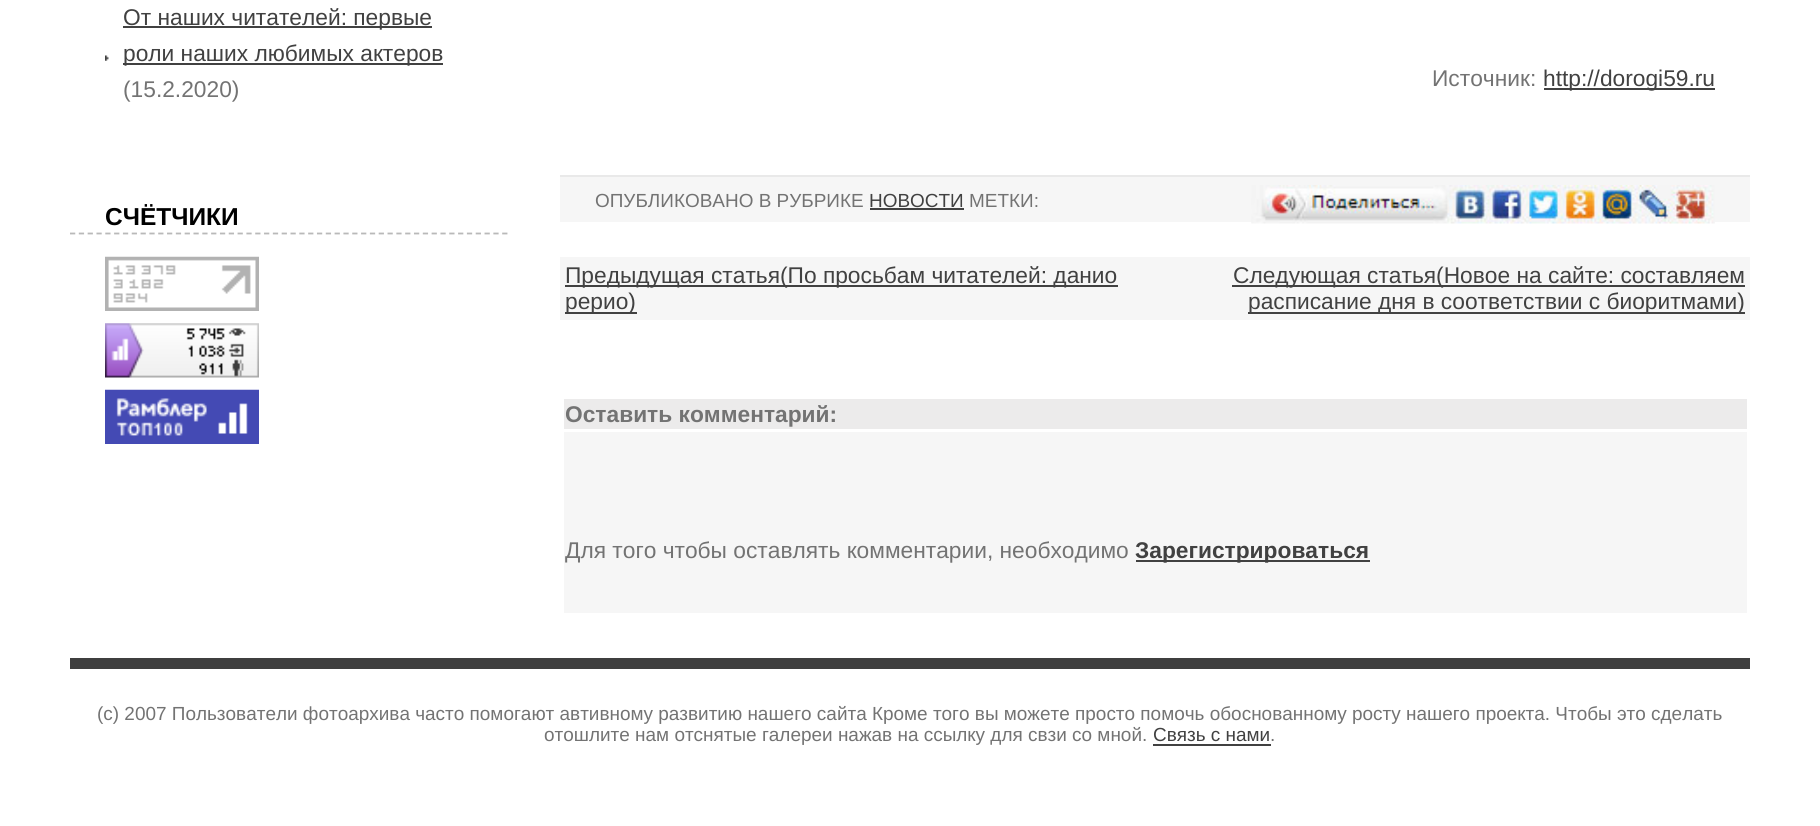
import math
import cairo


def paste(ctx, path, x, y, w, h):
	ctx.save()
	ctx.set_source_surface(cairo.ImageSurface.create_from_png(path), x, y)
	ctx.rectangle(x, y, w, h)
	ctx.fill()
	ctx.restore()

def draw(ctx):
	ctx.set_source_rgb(1, 1, 1)
	ctx.paint()
	paste(ctx, 'media/1.png', 105, 55, 4, 6)
	ctx.set_source_rgb(0.255, 0.255, 0.255)
	ctx.rectangle(123, 26, 309, 2)
	ctx.fill()
	ctx.select_font_face('Liberation Sans')
	ctx.set_font_size(22.75)
	ctx.move_to(123, 25)
	ctx.show_text('От наших читателей: первые')
	ctx.rectangle(123, 63, 320, 2)
	ctx.fill()
	ctx.move_to(123, 61)
	ctx.show_text('роли наших любимых актеров')
	ctx.set_source_rgb(0.451, 0.451, 0.451)
	ctx.move_to(123, 97)
	ctx.show_text('(15.2.2020)')
	ctx.new_path()
	ctx.move_to(70, 233.5)
	ctx.line_to(507.5, 233.5)
	ctx.set_source_rgb(0.725, 0.725, 0.725)
	ctx.set_line_width(1.8)
	ctx.set_dash([5.25, 3.57])
	ctx.stroke()
	ctx.select_font_face('Liberation Sans', cairo.FONT_SLANT_NORMAL, cairo.FONT_WEIGHT_BOLD)
	ctx.set_font_size(24.5)
	ctx.set_source_rgb(0, 0, 0)
	ctx.move_to(105, 225)
	ctx.show_text('СЧЁТЧИКИ')
	paste(ctx, 'media/2.png', 105, 256, 154, 55)
	paste(ctx, 'media/3.png', 105, 323, 154, 55)
	paste(ctx, 'media/4.png', 105, 389, 154, 55)
	ctx.select_font_face('Liberation Sans')
	ctx.set_font_size(22.75)
	ctx.set_source_rgb(0.451, 0.451, 0.451)
	ctx.move_to(1432, 86)
	ctx.show_text('Источник:')
	ctx.set_source_rgb(0.255, 0.255, 0.255)
	ctx.rectangle(1544, 88, 171, 2)
	ctx.fill()
	ctx.move_to(1543, 86)
	ctx.show_text('http://dorogi59.ru')
	ctx.set_source_rgb(0.961, 0.961, 0.961)
	ctx.rectangle(560, 177, 1190, 45)
	ctx.fill()
	ctx.set_source_rgb(0.914, 0.914, 0.914)
	ctx.rectangle(560, 175, 1190, 2)
	ctx.fill()
	ctx.set_font_size(18.95)
	ctx.set_source_rgb(0.451, 0.451, 0.451)
	ctx.move_to(595, 207)
	ctx.show_text('ОПУБЛИКОВАНО В РУБРИКЕ')
	ctx.set_source_rgb(0.255, 0.255, 0.255)
	ctx.move_to(869, 207)
	ctx.show_text('НОВОСТИ')
	ctx.rectangle(870, 208, 94, 2)
	ctx.fill()
	ctx.set_source_rgb(0.451, 0.451, 0.451)
	ctx.move_to(969, 207)
	ctx.show_text('МЕТКИ:')
	paste(ctx, 'media/5.png', 1251, 185, 464, 39)
	ctx.set_source_rgb(0.961, 0.961, 0.961)
	ctx.rectangle(560, 257, 1190, 63)
	ctx.fill()
	ctx.set_source_rgb(0.255, 0.255, 0.255)
	ctx.rectangle(565, 285, 553, 2)
	ctx.fill()
	ctx.set_font_size(22.75)
	ctx.move_to(565, 283)
	ctx.show_text('Предыдущая статья(По просьбам читателей: данио')
	ctx.rectangle(565, 312, 72, 2)
	ctx.fill()
	ctx.move_to(565, 309)
	ctx.show_text('рерио)')
	ctx.rectangle(1232, 285, 513, 2)
	ctx.fill()
	ctx.move_to(1233, 283)
	ctx.show_text('Следующая статья(Новое на сайте: составляем')
	ctx.rectangle(1248, 312, 497, 2)
	ctx.fill()
	ctx.move_to(1248, 309)
	ctx.show_text('расписание дня в соответствии с биоритмами)')
	ctx.set_source_rgb(0.922, 0.918, 0.918)
	ctx.rectangle(564, 399, 1183, 30)
	ctx.fill()
	ctx.select_font_face('Liberation Sans', cairo.FONT_SLANT_NORMAL, cairo.FONT_WEIGHT_BOLD)
	ctx.set_source_rgb(0.451, 0.451, 0.451)
	ctx.move_to(565, 422)
	ctx.show_text('Оставить комментарий:')
	ctx.set_source_rgb(0.961, 0.961, 0.961)
	ctx.rectangle(564, 432, 1183, 181)
	ctx.fill()
	ctx.select_font_face('Liberation Sans')
	ctx.set_source_rgb(0.451, 0.451, 0.451)
	ctx.move_to(565, 558)
	ctx.show_text('Для того чтобы оставлять комментарии, необходимо')
	ctx.set_source_rgb(0.255, 0.255, 0.255)
	ctx.rectangle(1136, 560, 234, 2)
	ctx.fill()
	ctx.select_font_face('Liberation Sans', cairo.FONT_SLANT_NORMAL, cairo.FONT_WEIGHT_BOLD)
	ctx.move_to(1135, 558)
	ctx.show_text('Зарегистрироваться')
	ctx.set_source_rgb(0.247, 0.247, 0.247)
	ctx.rectangle(70, 658, 1680, 11)
	ctx.fill()
	ctx.select_font_face('Liberation Sans')
	ctx.set_font_size(18.95)
	ctx.set_source_rgb(0.451, 0.451, 0.451)
	ctx.move_to(97, 720)
	ctx.show_text('(c) 2007 Пользователи фотоархива часто помогают автивному развитию нашего сайта Кроме того вы можете просто помочь обоснованному росту нашего проекта. Чтобы это сделать')
	ctx.move_to(544, 741)
	ctx.show_text('отошлите нам отснятые галереи нажав на ссылку для свзи со мной.')
	ctx.set_source_rgb(0.255, 0.255, 0.255)
	ctx.move_to(1153, 741)
	ctx.show_text('Связь с нами')
	ctx.rectangle(1153, 744, 118, 2)
	ctx.fill()
	ctx.set_source_rgb(0.451, 0.451, 0.451)
	ctx.move_to(1270, 741)
	ctx.show_text('.')


surface = cairo.ImageSurface(cairo.FORMAT_RGB24, 1820, 826)
ctx = cairo.Context(surface)
options = cairo.FontOptions()
options.set_hint_metrics(cairo.HINT_METRICS_OFF)
options.set_hint_style(cairo.HINT_STYLE_NONE)
ctx.set_font_options(options)
ctx.set_miter_limit(4)
draw(ctx)
surface.write_to_png('image.png')
